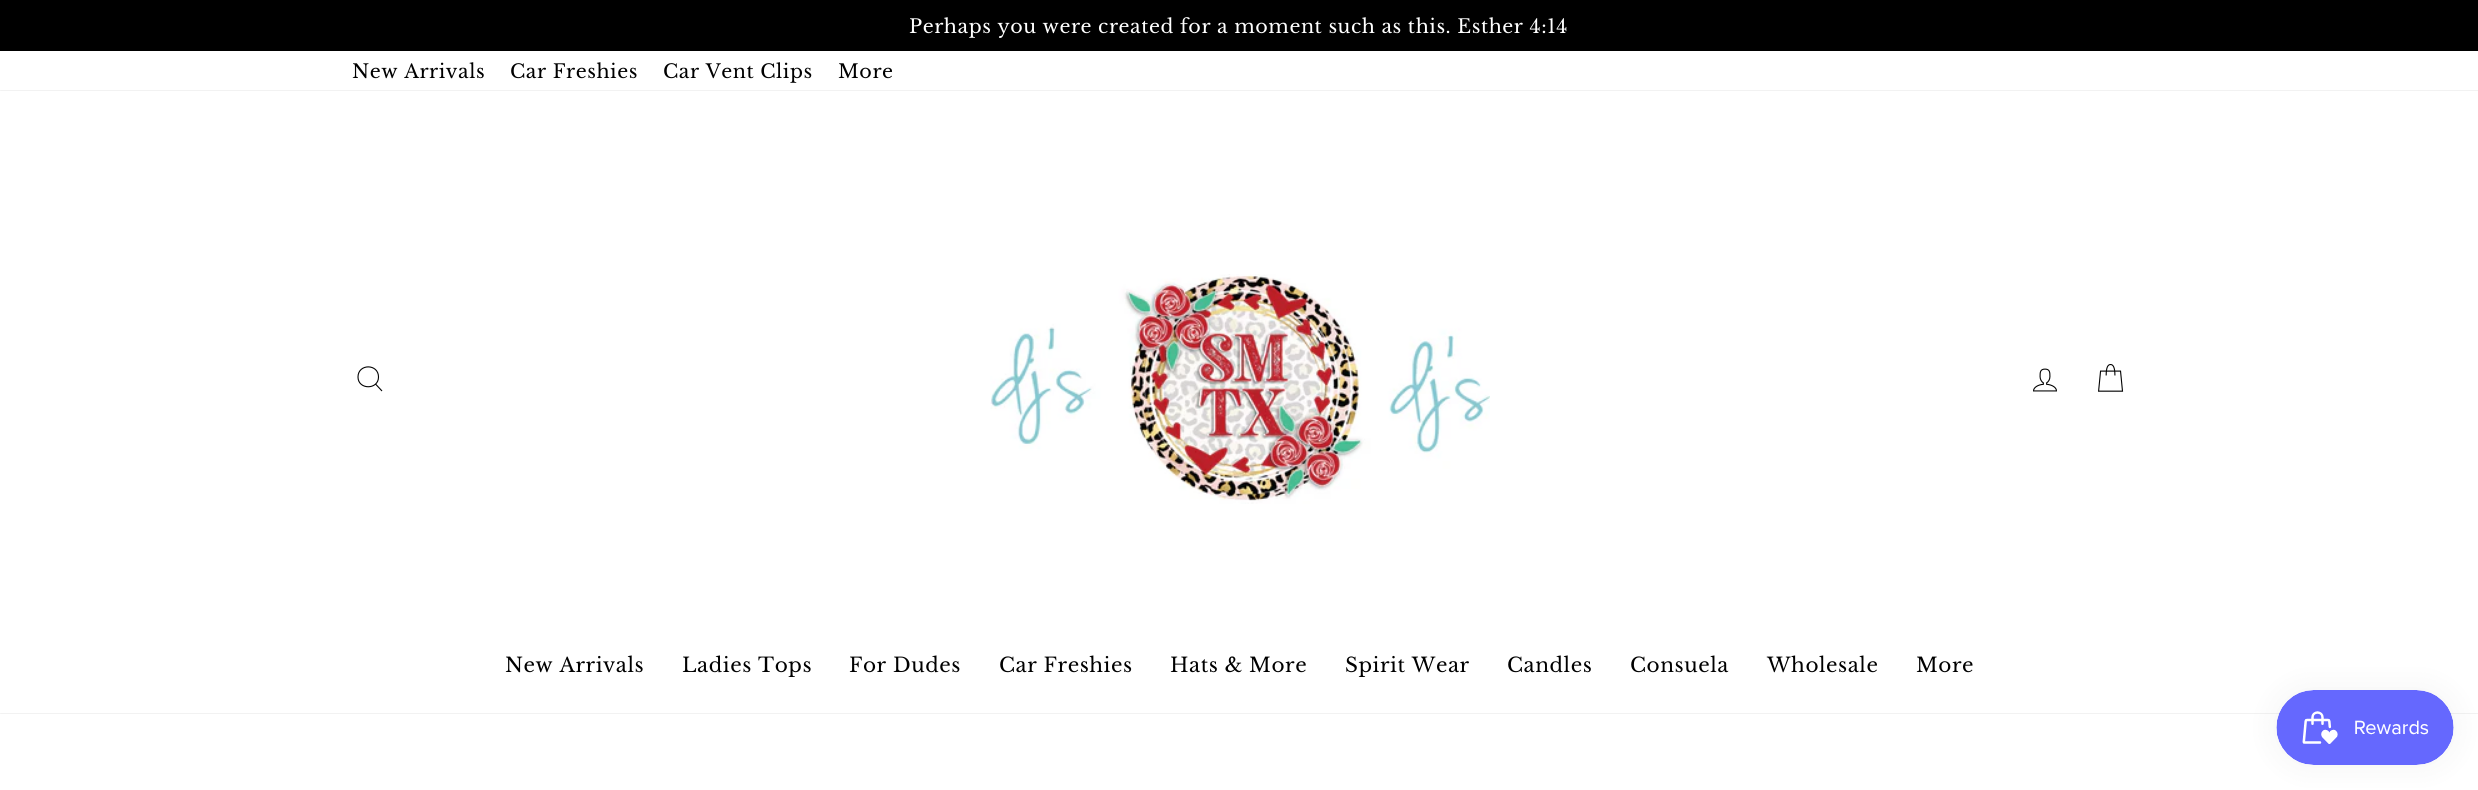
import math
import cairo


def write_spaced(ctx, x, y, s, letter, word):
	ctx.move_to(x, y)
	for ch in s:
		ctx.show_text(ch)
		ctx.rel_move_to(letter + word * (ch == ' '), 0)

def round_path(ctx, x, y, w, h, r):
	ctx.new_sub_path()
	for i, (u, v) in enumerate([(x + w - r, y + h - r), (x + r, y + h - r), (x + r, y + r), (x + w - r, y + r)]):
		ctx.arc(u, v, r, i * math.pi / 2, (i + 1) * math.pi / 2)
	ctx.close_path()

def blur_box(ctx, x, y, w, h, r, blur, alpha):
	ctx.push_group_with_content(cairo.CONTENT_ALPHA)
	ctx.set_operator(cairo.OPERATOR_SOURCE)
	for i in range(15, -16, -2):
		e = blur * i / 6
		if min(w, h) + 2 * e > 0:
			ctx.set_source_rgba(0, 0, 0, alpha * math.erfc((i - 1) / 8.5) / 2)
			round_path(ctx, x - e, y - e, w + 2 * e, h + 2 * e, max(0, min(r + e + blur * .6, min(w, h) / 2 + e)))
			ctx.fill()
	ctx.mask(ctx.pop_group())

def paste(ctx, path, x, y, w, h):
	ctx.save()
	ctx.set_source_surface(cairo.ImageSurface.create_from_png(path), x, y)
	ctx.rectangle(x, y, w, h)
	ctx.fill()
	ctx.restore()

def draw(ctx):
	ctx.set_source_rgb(1, 1, 1)
	ctx.paint()
	ctx.set_source_rgb(0, 0, 0)
	ctx.rectangle(0, 0, 2478, 51)
	ctx.fill()
	ctx.select_font_face('Libre Baskerville')
	ctx.set_font_size(19.1)
	ctx.set_source_rgb(1, 1, 1)
	write_spaced(ctx, 909, 33, 'Perhaps you were created for a moment such as this. Esther 4:14', 0.55, 0)
	ctx.set_source_rgb(0, 0, 0)
	for x, y, s in [
		(352, 78, 'New Arrivals'),
		(510, 78, 'Car Freshies'),
		(663, 78, 'Car Vent Clips'),
		(838, 78, 'More'),
	]:
		write_spaced(ctx, x, y, s, 0.55, 0)
	ctx.set_source_rgb(0, 0, 0)
	blur_box(ctx, 0, 91, 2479, 622, 0, 0.5, 0.2)
	ctx.set_source_rgb(1, 1, 1)
	ctx.rectangle(0, 91, 2478, 622)
	ctx.fill()
	ctx.new_path()
	ctx.move_to(378.5, 377)
	ctx.curve_to(378.5, 390, 358, 390, 358, 377)
	ctx.curve_to(358, 363.5, 378.5, 363.5, 378.5, 377)
	ctx.close_path()
	ctx.move_to(382, 391)
	ctx.line_to(375.5, 384)
	ctx.set_source_rgb(0, 0, 0)
	ctx.set_line_width(1.1)
	ctx.stroke()
	paste(ctx, 'media/1.png', 990, 274, 500, 230)
	paste(ctx, 'media/2.png', 2033, 368, 24, 24)
	paste(ctx, 'media/3.png', 2098, 364, 26, 28)
	ctx.set_font_size(20)
	for x, y, s in [
		(505, 672, 'New Arrivals'),
		(682, 672, 'Ladies Tops'),
		(849, 672, 'For Dudes'),
		(999, 672, 'Car Freshies'),
		(1170, 672, 'Hats & More'),
		(1345, 672, 'Spirit Wear'),
		(1507, 672, 'Candles'),
		(1630, 672, 'Consuela'),
		(1767, 672, 'Wholesale'),
		(1916, 672, 'More'),
	]:
		write_spaced(ctx, x, y, s, 0.55, 0)
	ctx.set_source_rgb(0, 0, 0)
	blur_box(ctx, 2276, 690, 178, 75, 37.5, 15.5, 0.05)
	paste(ctx, 'media/4.png', 2276, 690, 178, 75)


surface = cairo.ImageSurface(cairo.FORMAT_RGB24, 2478, 790)
ctx = cairo.Context(surface)
options = cairo.FontOptions()
options.set_hint_metrics(cairo.HINT_METRICS_OFF)
options.set_hint_style(cairo.HINT_STYLE_NONE)
ctx.set_font_options(options)
ctx.set_miter_limit(4)
draw(ctx)
surface.write_to_png('image.png')
